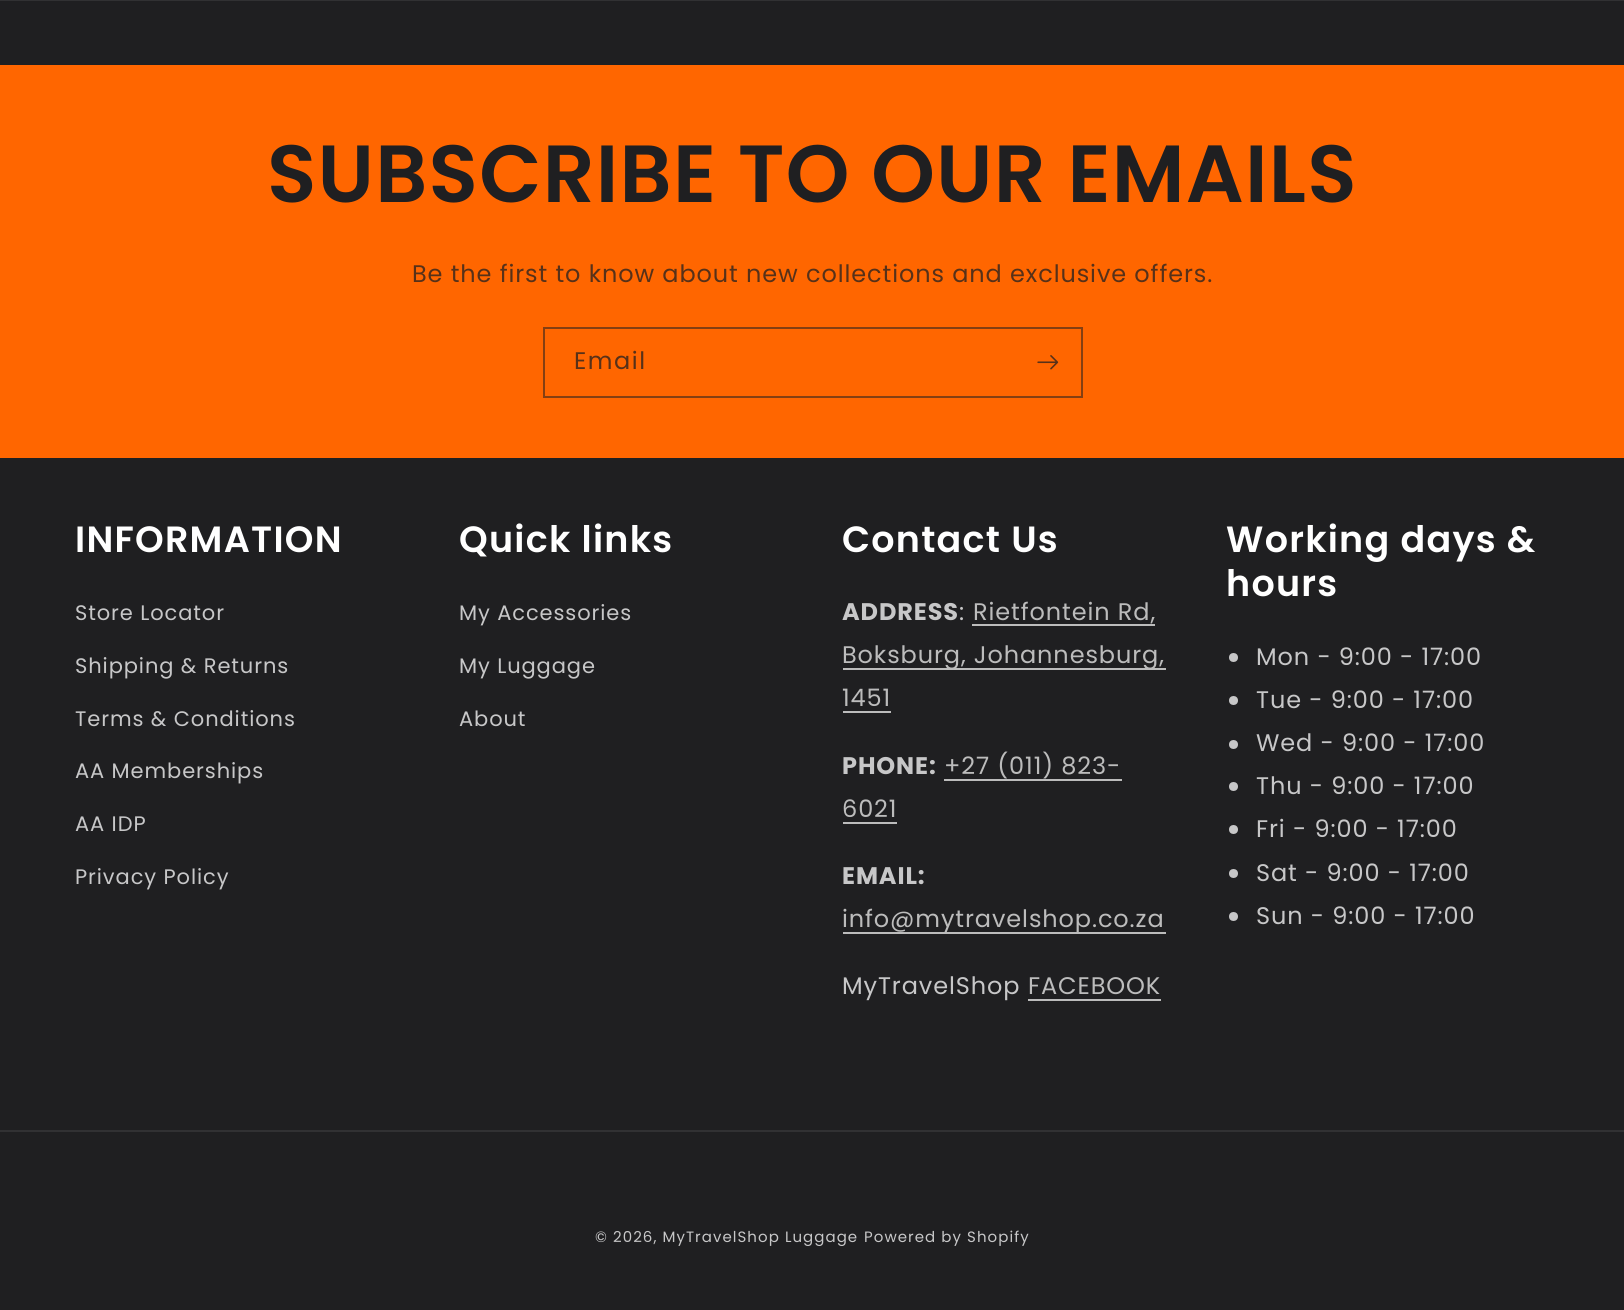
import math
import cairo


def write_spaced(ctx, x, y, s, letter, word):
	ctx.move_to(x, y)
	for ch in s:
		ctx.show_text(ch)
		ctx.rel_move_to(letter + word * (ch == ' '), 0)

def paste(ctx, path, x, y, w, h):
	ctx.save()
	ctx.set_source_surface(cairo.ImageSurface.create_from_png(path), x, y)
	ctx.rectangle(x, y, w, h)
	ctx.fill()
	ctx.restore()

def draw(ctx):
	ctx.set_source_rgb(0.122, 0.122, 0.129)
	ctx.paint()
	ctx.set_source_rgb(0.192, 0.192, 0.2)
	ctx.rectangle(0, 0, 1624, 1)
	ctx.fill()
	ctx.set_source_rgb(1, 0.4, 0)
	ctx.rectangle(0, 65, 1624, 393)
	ctx.fill()
	ctx.select_font_face('Poppins SemiBold')
	ctx.set_font_size(81)
	ctx.set_source_rgb(0.122, 0.122, 0.129)
	write_spaced(ctx, 267, 202, 'SUBSCRIBE TO OUR EMAILS', 1.25, 0)
	ctx.select_font_face('Poppins')
	ctx.set_font_size(24)
	ctx.set_source_rgb(0.341, 0.192, 0.098)
	write_spaced(ctx, 412, 282, 'Be the first to know about new collections and exclusive offers.', 0.9, 0)
	ctx.rectangle(544, 328, 538, 69)
	ctx.set_source_rgb(0.518, 0.247, 0.071)
	ctx.stroke()
	ctx.set_source_rgb(0.341, 0.192, 0.098)
	write_spaced(ctx, 574, 369, 'Email', 1.5, 0)
	paste(ctx, 'media/1.png', 1037, 355, 22, 15)
	ctx.select_font_face('Poppins SemiBold')
	ctx.set_font_size(36.5)
	ctx.set_source_rgb(1, 1, 1)
	write_spaced(ctx, 75, 552, 'INFORMATION', 1.25, 0)
	ctx.select_font_face('Poppins')
	ctx.set_font_size(21)
	ctx.set_source_rgb(0.78, 0.78, 0.784)
	for x, y, s in [
		(75, 620, 'Store Locator'),
		(75, 673, 'Shipping & Returns'),
		(75, 726, 'Terms & Conditions'),
		(75, 778, 'AA Memberships'),
		(75, 831, 'AA IDP'),
		(75, 884, 'Privacy Policy'),
	]:
		write_spaced(ctx, x, y, s, 0.9, 0)
	ctx.select_font_face('Poppins SemiBold')
	ctx.set_font_size(36.5)
	ctx.set_source_rgb(1, 1, 1)
	write_spaced(ctx, 459, 552, 'Quick links', 1.25, 0)
	ctx.select_font_face('Poppins')
	ctx.set_font_size(21)
	ctx.set_source_rgb(0.78, 0.78, 0.784)
	for x, y, s in [
		(459, 620, 'My Accessories'),
		(459, 673, 'My Luggage'),
		(459, 726, 'About'),
	]:
		write_spaced(ctx, x, y, s, 0.9, 0)
	ctx.select_font_face('Poppins SemiBold')
	ctx.set_font_size(36.5)
	ctx.set_source_rgb(1, 1, 1)
	write_spaced(ctx, 842, 552, 'Contact Us', 1.25, 0)
	ctx.select_font_face('Poppins', cairo.FONT_SLANT_NORMAL, cairo.FONT_WEIGHT_BOLD)
	ctx.set_font_size(24)
	ctx.set_source_rgb(0.78, 0.78, 0.784)
	write_spaced(ctx, 842, 620, 'ADDRESS', 0.9, 0)
	ctx.select_font_face('Poppins')
	write_spaced(ctx, 959, 620, ':', 0.9, 0)
	ctx.set_source_rgb(0.737, 0.737, 0.737)
	write_spaced(ctx, 973, 620, 'Rietfontein Rd,', 0.9, 0)
	ctx.rectangle(972, 624, 183, 2)
	ctx.fill()
	ctx.rectangle(843, 668, 323, 2)
	ctx.fill()
	write_spaced(ctx, 842, 663, 'Boksburg, Johannesburg,', 0.9, 0)
	write_spaced(ctx, 842, 706, '1451', 0.9, 0)
	ctx.rectangle(843, 711, 48, 2)
	ctx.fill()
	ctx.select_font_face('Poppins', cairo.FONT_SLANT_NORMAL, cairo.FONT_WEIGHT_BOLD)
	ctx.set_source_rgb(0.78, 0.78, 0.784)
	write_spaced(ctx, 842, 774, 'PHONE:', 0.9, 0)
	ctx.select_font_face('Poppins')
	ctx.set_source_rgb(0.737, 0.737, 0.737)
	write_spaced(ctx, 944, 774, '+27 (011) 823-', 0.9, 0)
	ctx.rectangle(944, 779, 178, 2)
	ctx.fill()
	write_spaced(ctx, 842, 817, '6021', 0.9, 0)
	ctx.rectangle(843, 822, 54, 2)
	ctx.fill()
	ctx.select_font_face('Poppins', cairo.FONT_SLANT_NORMAL, cairo.FONT_WEIGHT_BOLD)
	ctx.set_source_rgb(0.78, 0.78, 0.784)
	write_spaced(ctx, 842, 884, 'EMAIL:', 0.9, 0)
	ctx.set_source_rgb(0.737, 0.737, 0.737)
	ctx.rectangle(843, 932, 323, 2)
	ctx.fill()
	ctx.select_font_face('Poppins')
	write_spaced(ctx, 842, 927, 'info@mytravelshop.co.za', 0.9, 0)
	ctx.set_source_rgb(0.78, 0.78, 0.784)
	write_spaced(ctx, 842, 994, 'MyTravelShop', 0.9, 0)
	ctx.set_source_rgb(0.737, 0.737, 0.737)
	write_spaced(ctx, 1028, 994, 'FACEBOOK', 0.9, 0)
	ctx.rectangle(1028, 999, 133, 2)
	ctx.fill()
	ctx.select_font_face('Poppins SemiBold')
	ctx.set_font_size(36.5)
	ctx.set_source_rgb(1, 1, 1)
	write_spaced(ctx, 1226, 552, 'Working days &', 1.25, 0)
	write_spaced(ctx, 1226, 596, 'hours', 1.25, 0)
	ctx.set_source_rgb(0.78, 0.78, 0.784)
	ctx.new_path()
	ctx.arc(1233.5, 657.5, 4.5, 0, 2 * math.pi)
	ctx.fill()
	ctx.select_font_face('Poppins')
	ctx.set_font_size(24)
	write_spaced(ctx, 1256, 665, 'Mon - 9:00 - 17:00', 0.9, 0)
	ctx.new_path()
	ctx.arc(1233.5, 700.5, 4.5, 0, 2 * math.pi)
	ctx.fill()
	write_spaced(ctx, 1256, 708, 'Tue - 9:00 - 17:00', 0.9, 0)
	ctx.new_path()
	ctx.arc(1233.5, 744.5, 4.5, 0, 2 * math.pi)
	ctx.fill()
	write_spaced(ctx, 1256, 751, 'Wed - 9:00 - 17:00', 0.9, 0)
	ctx.new_path()
	ctx.arc(1233.5, 786.5, 4.5, 0, 2 * math.pi)
	ctx.fill()
	write_spaced(ctx, 1256, 794, 'Thu - 9:00 - 17:00', 0.9, 0)
	ctx.new_path()
	ctx.arc(1233.5, 829.5, 4.5, 0, 2 * math.pi)
	ctx.fill()
	write_spaced(ctx, 1256, 837, 'Fri - 9:00 - 17:00', 0.9, 0)
	ctx.new_path()
	ctx.arc(1233.5, 873.5, 4.5, 0, 2 * math.pi)
	ctx.fill()
	write_spaced(ctx, 1256, 881, 'Sat - 9:00 - 17:00', 0.9, 0)
	ctx.new_path()
	ctx.arc(1233.5, 916.5, 4.5, 0, 2 * math.pi)
	ctx.fill()
	write_spaced(ctx, 1256, 924, 'Sun - 9:00 - 17:00', 0.9, 0)
	ctx.set_source_rgb(0.192, 0.192, 0.2)
	ctx.rectangle(0, 1130, 1624, 2)
	ctx.fill()
	ctx.set_font_size(15)
	ctx.set_source_rgb(0.78, 0.78, 0.784)
	write_spaced(ctx, 595, 1242, '© 2026, MyTravelShop Luggage', 1.05, 0)
	write_spaced(ctx, 864, 1242, 'Powered by Shopify', 1.05, 0)


surface = cairo.ImageSurface(cairo.FORMAT_RGB24, 1624, 1310)
ctx = cairo.Context(surface)
options = cairo.FontOptions()
options.set_hint_metrics(cairo.HINT_METRICS_OFF)
options.set_hint_style(cairo.HINT_STYLE_NONE)
ctx.set_font_options(options)
ctx.set_miter_limit(4)
draw(ctx)
surface.write_to_png('image.png')
